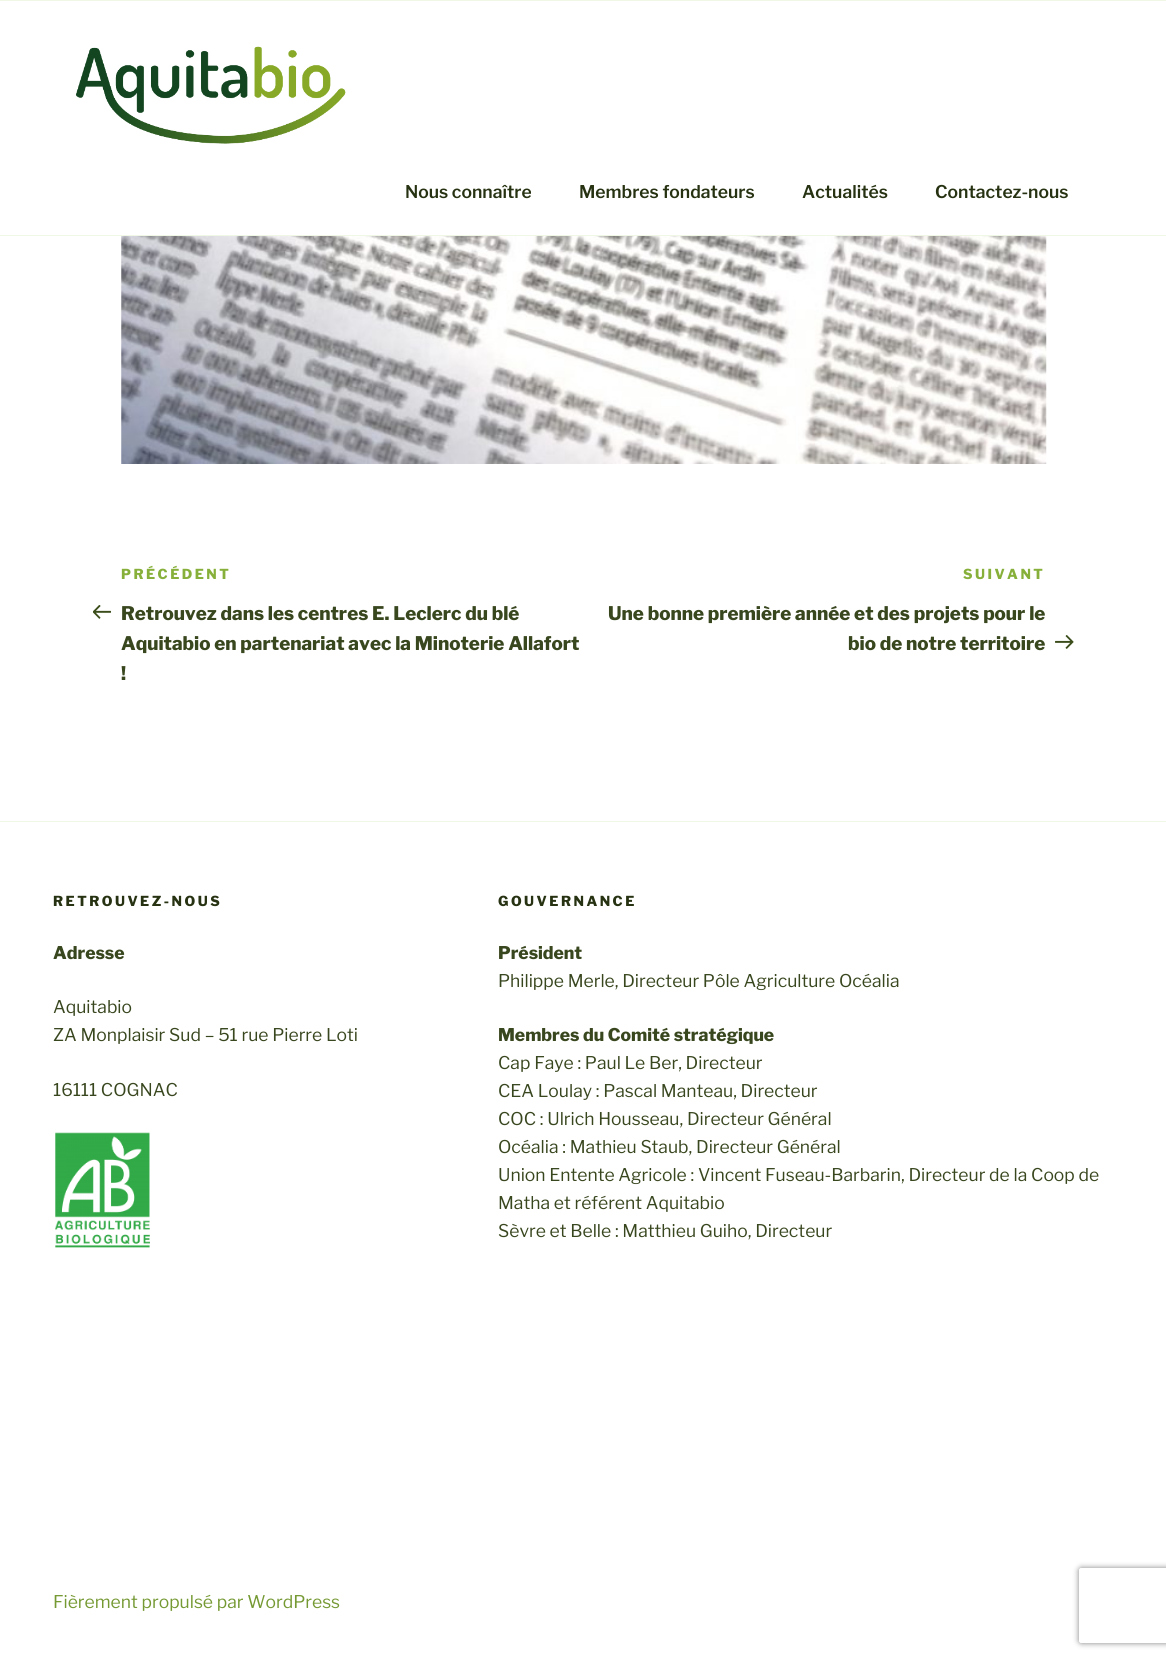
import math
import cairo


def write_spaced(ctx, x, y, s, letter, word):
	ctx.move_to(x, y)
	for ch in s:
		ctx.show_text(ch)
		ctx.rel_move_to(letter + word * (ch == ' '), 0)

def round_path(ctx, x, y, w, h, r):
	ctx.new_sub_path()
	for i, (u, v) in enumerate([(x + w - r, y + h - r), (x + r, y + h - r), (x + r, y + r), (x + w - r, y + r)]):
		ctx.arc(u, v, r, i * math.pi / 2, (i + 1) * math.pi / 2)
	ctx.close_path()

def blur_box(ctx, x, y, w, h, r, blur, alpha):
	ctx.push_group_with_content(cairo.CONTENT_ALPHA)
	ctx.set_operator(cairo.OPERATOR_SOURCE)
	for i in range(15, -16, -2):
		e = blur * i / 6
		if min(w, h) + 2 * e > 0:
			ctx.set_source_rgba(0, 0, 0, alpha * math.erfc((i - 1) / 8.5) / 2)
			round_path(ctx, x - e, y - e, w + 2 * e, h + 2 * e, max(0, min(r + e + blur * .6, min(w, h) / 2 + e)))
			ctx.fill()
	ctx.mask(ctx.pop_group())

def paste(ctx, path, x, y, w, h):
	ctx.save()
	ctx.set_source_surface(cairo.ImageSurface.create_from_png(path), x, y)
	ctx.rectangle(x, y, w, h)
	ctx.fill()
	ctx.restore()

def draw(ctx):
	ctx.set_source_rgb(1, 1, 1)
	ctx.paint()
	ctx.set_source_rgb(0.941, 0.965, 0.894)
	ctx.rectangle(0, 0, 1166, 1)
	ctx.fill()
	ctx.rectangle(0, 235, 1166, 1)
	ctx.fill()
	paste(ctx, 'media/1.png', 75, 46, 271, 98)
	ctx.select_font_face('Libre Franklin SemiBold')
	ctx.set_font_size(17.5)
	ctx.set_source_rgb(0.149, 0.196, 0.067)
	for x, y, s in [
		(405, 198, 'Nous connaître'),
		(579, 198, 'Membres fondateurs'),
		(802, 198, 'Actualités'),
		(935, 198, 'Contactez-nous'),
	]:
		ctx.move_to(x, y)
		ctx.show_text(s)
	paste(ctx, 'media/2.png', 121, 236, 926, 228)
	ctx.select_font_face('Libre Franklin ExtraBold')
	ctx.set_font_size(13.75)
	ctx.set_source_rgb(0.529, 0.69, 0.231)
	write_spaced(ctx, 121, 579, 'PRÉCÉDENT', 2.5, 0)
	paste(ctx, 'media/3.png', 93, 605, 18, 14)
	ctx.set_font_size(18.75)
	ctx.set_source_rgb(0.224, 0.278, 0.122)
	for x, y, s in [
		(121, 620, 'Retrouvez dans les centres E. Leclerc du blé'),
		(121, 650, 'Aquitabio en partenariat avec la Minoterie Allafort'),
		(121, 680, '!'),
	]:
		ctx.move_to(x, y)
		ctx.show_text(s)
	ctx.set_font_size(13.75)
	ctx.set_source_rgb(0.529, 0.69, 0.231)
	write_spaced(ctx, 963, 579, 'SUIVANT', 2.5, 0)
	ctx.set_font_size(18.75)
	ctx.set_source_rgb(0.224, 0.278, 0.122)
	ctx.move_to(608, 620)
	ctx.show_text('Une bonne première année et des projets pour le')
	ctx.move_to(848, 650)
	ctx.show_text('bio de notre territoire')
	paste(ctx, 'media/4.png', 1055, 635, 19, 14)
	ctx.set_source_rgb(0.941, 0.965, 0.894)
	ctx.rectangle(0, 821, 1166, 1)
	ctx.fill()
	ctx.set_font_size(13.75)
	ctx.set_source_rgb(0.149, 0.196, 0.067)
	write_spaced(ctx, 53, 906, 'RETROUVEZ-NOUS', 2.5, 0)
	ctx.set_font_size(17.5)
	ctx.set_source_rgb(0.224, 0.278, 0.122)
	ctx.move_to(53, 959)
	ctx.show_text('Adresse')
	ctx.select_font_face('Libre Franklin')
	for x, y, s in [
		(53, 1013, 'Aquitabio'),
		(53, 1041, 'ZA Monplaisir Sud – 51 rue Pierre Loti'),
		(53, 1096, '16111 COGNAC'),
	]:
		ctx.move_to(x, y)
		ctx.show_text(s)
	paste(ctx, 'media/5.png', 55, 1132, 95, 116)
	ctx.select_font_face('Libre Franklin ExtraBold')
	ctx.set_font_size(13.75)
	ctx.set_source_rgb(0.149, 0.196, 0.067)
	write_spaced(ctx, 498, 906, 'GOUVERNANCE', 2.5, 0)
	ctx.set_font_size(17.5)
	ctx.set_source_rgb(0.224, 0.278, 0.122)
	ctx.move_to(498, 959)
	ctx.show_text('Président')
	ctx.select_font_face('Libre Franklin')
	ctx.move_to(498, 987)
	ctx.show_text('Philippe Merle, Directeur Pôle Agriculture Océalia')
	ctx.select_font_face('Libre Franklin ExtraBold')
	ctx.move_to(498, 1041)
	ctx.show_text('Membres du Comité stratégique')
	ctx.select_font_face('Libre Franklin')
	for x, y, s in [
		(498, 1069, 'Cap Faye : Paul Le Ber, Directeur'),
		(498, 1097, 'CEA Loulay : Pascal Manteau, Directeur'),
		(498, 1125, 'COC : Ulrich Housseau, Directeur Général'),
		(498, 1153, 'Océalia : Mathieu Staub, Directeur Général'),
		(498, 1181, 'Union Entente Agricole : Vincent Fuseau-Barbarin, Directeur de la Coop de'),
		(498, 1209, 'Matha et référent Aquitabio'),
		(498, 1237, 'Sèvre et Belle : Matthieu Guiho, Directeur'),
	]:
		ctx.move_to(x, y)
		ctx.show_text(s)
	ctx.set_source_rgb(0.459, 0.6, 0.2)
	ctx.move_to(53, 1608)
	ctx.show_text('Fièrement propulsé par WordPress')
	ctx.save()
	ctx.set_fill_rule(cairo.FILL_RULE_EVEN_ODD)
	ctx.new_path()
	ctx.move_to(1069, 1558)
	ctx.line_to(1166, 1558)
	ctx.line_to(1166, 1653)
	ctx.line_to(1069, 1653)
	ctx.close_path()
	ctx.move_to(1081.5, 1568)
	ctx.line_to(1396.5, 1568)
	ctx.curve_to(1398, 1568, 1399, 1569, 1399, 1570.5)
	ctx.line_to(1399, 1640.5)
	ctx.curve_to(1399, 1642, 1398, 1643, 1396.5, 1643)
	ctx.line_to(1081.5, 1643)
	ctx.curve_to(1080, 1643, 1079, 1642, 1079, 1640.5)
	ctx.line_to(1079, 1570.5)
	ctx.curve_to(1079, 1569, 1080, 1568, 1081.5, 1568)
	ctx.close_path()
	ctx.clip()
	ctx.set_source_rgb(0.502, 0.502, 0.502)
	blur_box(ctx, 1079, 1568, 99, 75, 2.5, 3, 1)
	ctx.restore()


surface = cairo.ImageSurface(cairo.FORMAT_RGB24, 1166, 1660)
ctx = cairo.Context(surface)
options = cairo.FontOptions()
options.set_hint_metrics(cairo.HINT_METRICS_OFF)
options.set_hint_style(cairo.HINT_STYLE_NONE)
ctx.set_font_options(options)
ctx.set_miter_limit(4)
draw(ctx)
surface.write_to_png('image.png')
